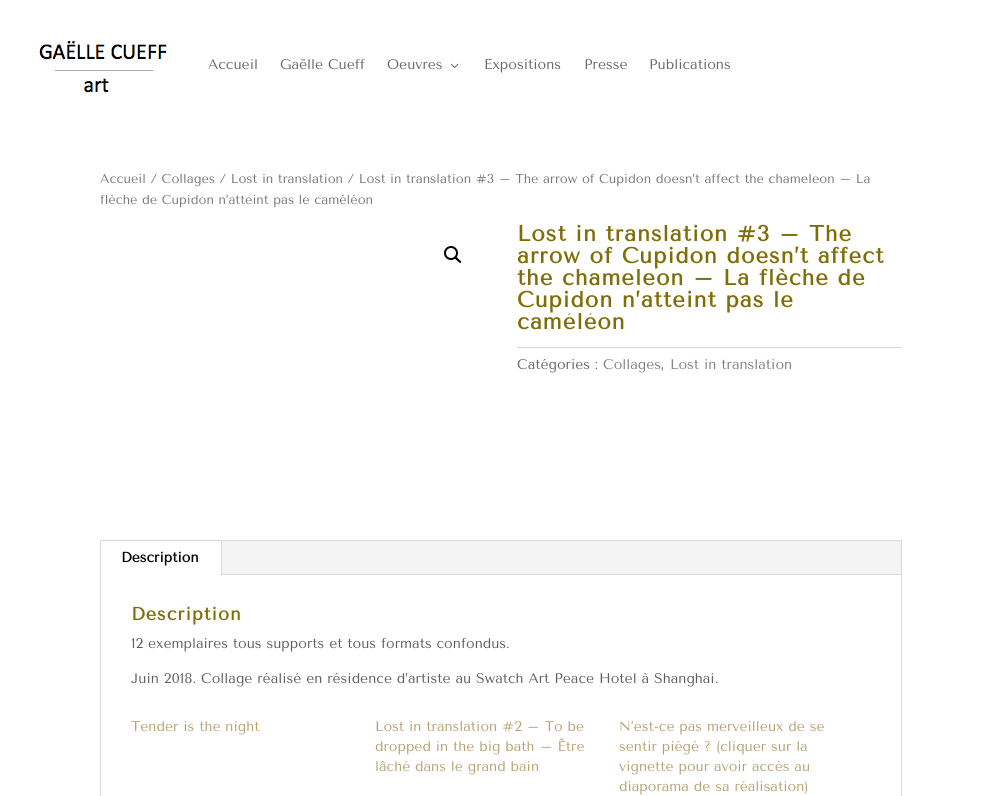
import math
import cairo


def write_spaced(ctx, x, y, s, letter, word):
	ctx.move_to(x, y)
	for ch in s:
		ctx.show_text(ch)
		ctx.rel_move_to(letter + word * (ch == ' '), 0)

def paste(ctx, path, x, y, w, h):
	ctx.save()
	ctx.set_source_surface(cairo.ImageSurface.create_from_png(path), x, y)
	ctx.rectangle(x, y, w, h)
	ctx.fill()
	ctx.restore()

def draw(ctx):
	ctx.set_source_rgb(1, 1, 1)
	ctx.paint()
	paste(ctx, 'media/1.png', 39, 41, 128, 52)
	ctx.select_font_face('Tenor Sans')
	ctx.set_font_size(14)
	ctx.set_source_rgb(0.4, 0.4, 0.4)
	for x, y, s in [
		(208, 69, 'Accueil'),
		(280, 69, 'Gaëlle Cueff'),
		(387, 69, 'Oeuvres'),
	]:
		ctx.move_to(x, y)
		ctx.show_text(s)
	paste(ctx, 'media/2.png', 450, 63, 9, 5)
	for x, y, s in [
		(484, 69, 'Expositions'),
		(584, 69, 'Presse'),
		(649, 69, 'Publications'),
	]:
		ctx.move_to(x, y)
		ctx.show_text(s)
	ctx.set_font_size(12.88)
	ctx.set_source_rgb(0.463, 0.463, 0.463)
	ctx.move_to(100, 183)
	ctx.show_text('Accueil / Collages / Lost in translation / Lost in translation #3 – The arrow of Cupidon doesn’t affect the chameleon – La')
	ctx.move_to(100, 204)
	ctx.show_text('flèche de Cupidon n’atteint pas le caméléon')
	ctx.new_path()
	ctx.arc(451, 253, 6, 0, 2 * math.pi)
	ctx.set_source_rgb(0, 0, 0)
	ctx.stroke()
	ctx.new_path()
	ctx.move_to(455, 257)
	ctx.curve_to(456.5, 256, 458, 258.5, 458.5, 259)
	ctx.curve_to(459.5, 260, 462, 261.5, 461, 262.5)
	ctx.curve_to(459.5, 264, 458, 261, 457, 260.5)
	ctx.curve_to(456.5, 260, 454, 258.5, 455, 257)
	ctx.close_path()
	ctx.fill()
	ctx.select_font_face('Tenor Sans', cairo.FONT_SLANT_NORMAL, cairo.FONT_WEIGHT_BOLD)
	ctx.set_font_size(22)
	ctx.set_source_rgb(0.498, 0.427, 0.024)
	for x, y, s in [
		(517, 241, 'Lost in translation #3 – The'),
		(517, 263, 'arrow of Cupidon doesn’t affect'),
		(517, 285, 'the chameleon – La flèche de'),
		(517, 307, 'Cupidon n’atteint pas le'),
		(517, 329, 'caméléon'),
	]:
		write_spaced(ctx, x, y, s, 1, 0)
	ctx.set_source_rgb(0.855, 0.855, 0.855)
	ctx.rectangle(517, 347, 385, 1)
	ctx.fill()
	ctx.select_font_face('Tenor Sans')
	ctx.set_font_size(14)
	ctx.set_source_rgb(0.4, 0.4, 0.4)
	ctx.move_to(517, 369)
	ctx.show_text('Catégories :')
	ctx.set_source_rgb(0.498, 0.498, 0.498)
	ctx.move_to(603, 369)
	ctx.show_text('Collages')
	ctx.set_source_rgb(0.4, 0.4, 0.4)
	ctx.move_to(661, 369)
	ctx.show_text(',')
	ctx.set_source_rgb(0.498, 0.498, 0.498)
	ctx.move_to(670, 369)
	ctx.show_text('Lost in translation')
	ctx.rectangle(100.5, 540.5, 801, 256)
	ctx.set_source_rgb(0.851, 0.851, 0.851)
	ctx.set_line_width(1)
	ctx.stroke()
	ctx.set_source_rgb(0.957, 0.957, 0.957)
	ctx.rectangle(222, 541, 679, 33)
	ctx.fill()
	ctx.set_source_rgb(0.851, 0.851, 0.851)
	ctx.rectangle(221, 541, 1, 34)
	ctx.fill()
	ctx.select_font_face('Tenor Sans', cairo.FONT_SLANT_NORMAL, cairo.FONT_WEIGHT_BOLD)
	ctx.set_source_rgb(0, 0, 0)
	ctx.move_to(121, 562)
	ctx.show_text('Description')
	ctx.set_source_rgb(0.851, 0.851, 0.851)
	ctx.rectangle(222, 574, 679, 1)
	ctx.fill()
	ctx.set_font_size(18)
	ctx.set_source_rgb(0.498, 0.427, 0.024)
	write_spaced(ctx, 131, 620, 'Description', 1, 0)
	ctx.select_font_face('Tenor Sans')
	ctx.set_font_size(14)
	ctx.set_source_rgb(0.369, 0.369, 0.369)
	ctx.move_to(131, 648)
	ctx.show_text('12 exemplaires tous supports et tous formats confondus.')
	ctx.move_to(131, 683)
	ctx.show_text('Juin 2018. Collage réalisé en résidence d’artiste au Swatch Art Peace Hotel à Shanghai.')
	ctx.set_source_rgb(0.718, 0.631, 0.447)
	for x, y, s in [
		(131, 731, 'Tender is the night'),
		(375, 731, 'Lost in translation #2 – To be'),
		(375, 751, 'dropped in the big bath – Être'),
		(375, 771, 'lâché dans le grand bain'),
		(619, 731, 'N’est-ce pas merveilleux de se'),
		(619, 751, 'sentir piégé ? (cliquer sur la'),
		(619, 771, 'vignette pour avoir accès au'),
		(619, 791, 'diaporama de sa réalisation)'),
	]:
		ctx.move_to(x, y)
		ctx.show_text(s)


surface = cairo.ImageSurface(cairo.FORMAT_RGB24, 1002, 796)
ctx = cairo.Context(surface)
options = cairo.FontOptions()
options.set_hint_metrics(cairo.HINT_METRICS_OFF)
options.set_hint_style(cairo.HINT_STYLE_NONE)
ctx.set_font_options(options)
ctx.set_miter_limit(4)
draw(ctx)
surface.write_to_png('image.png')
